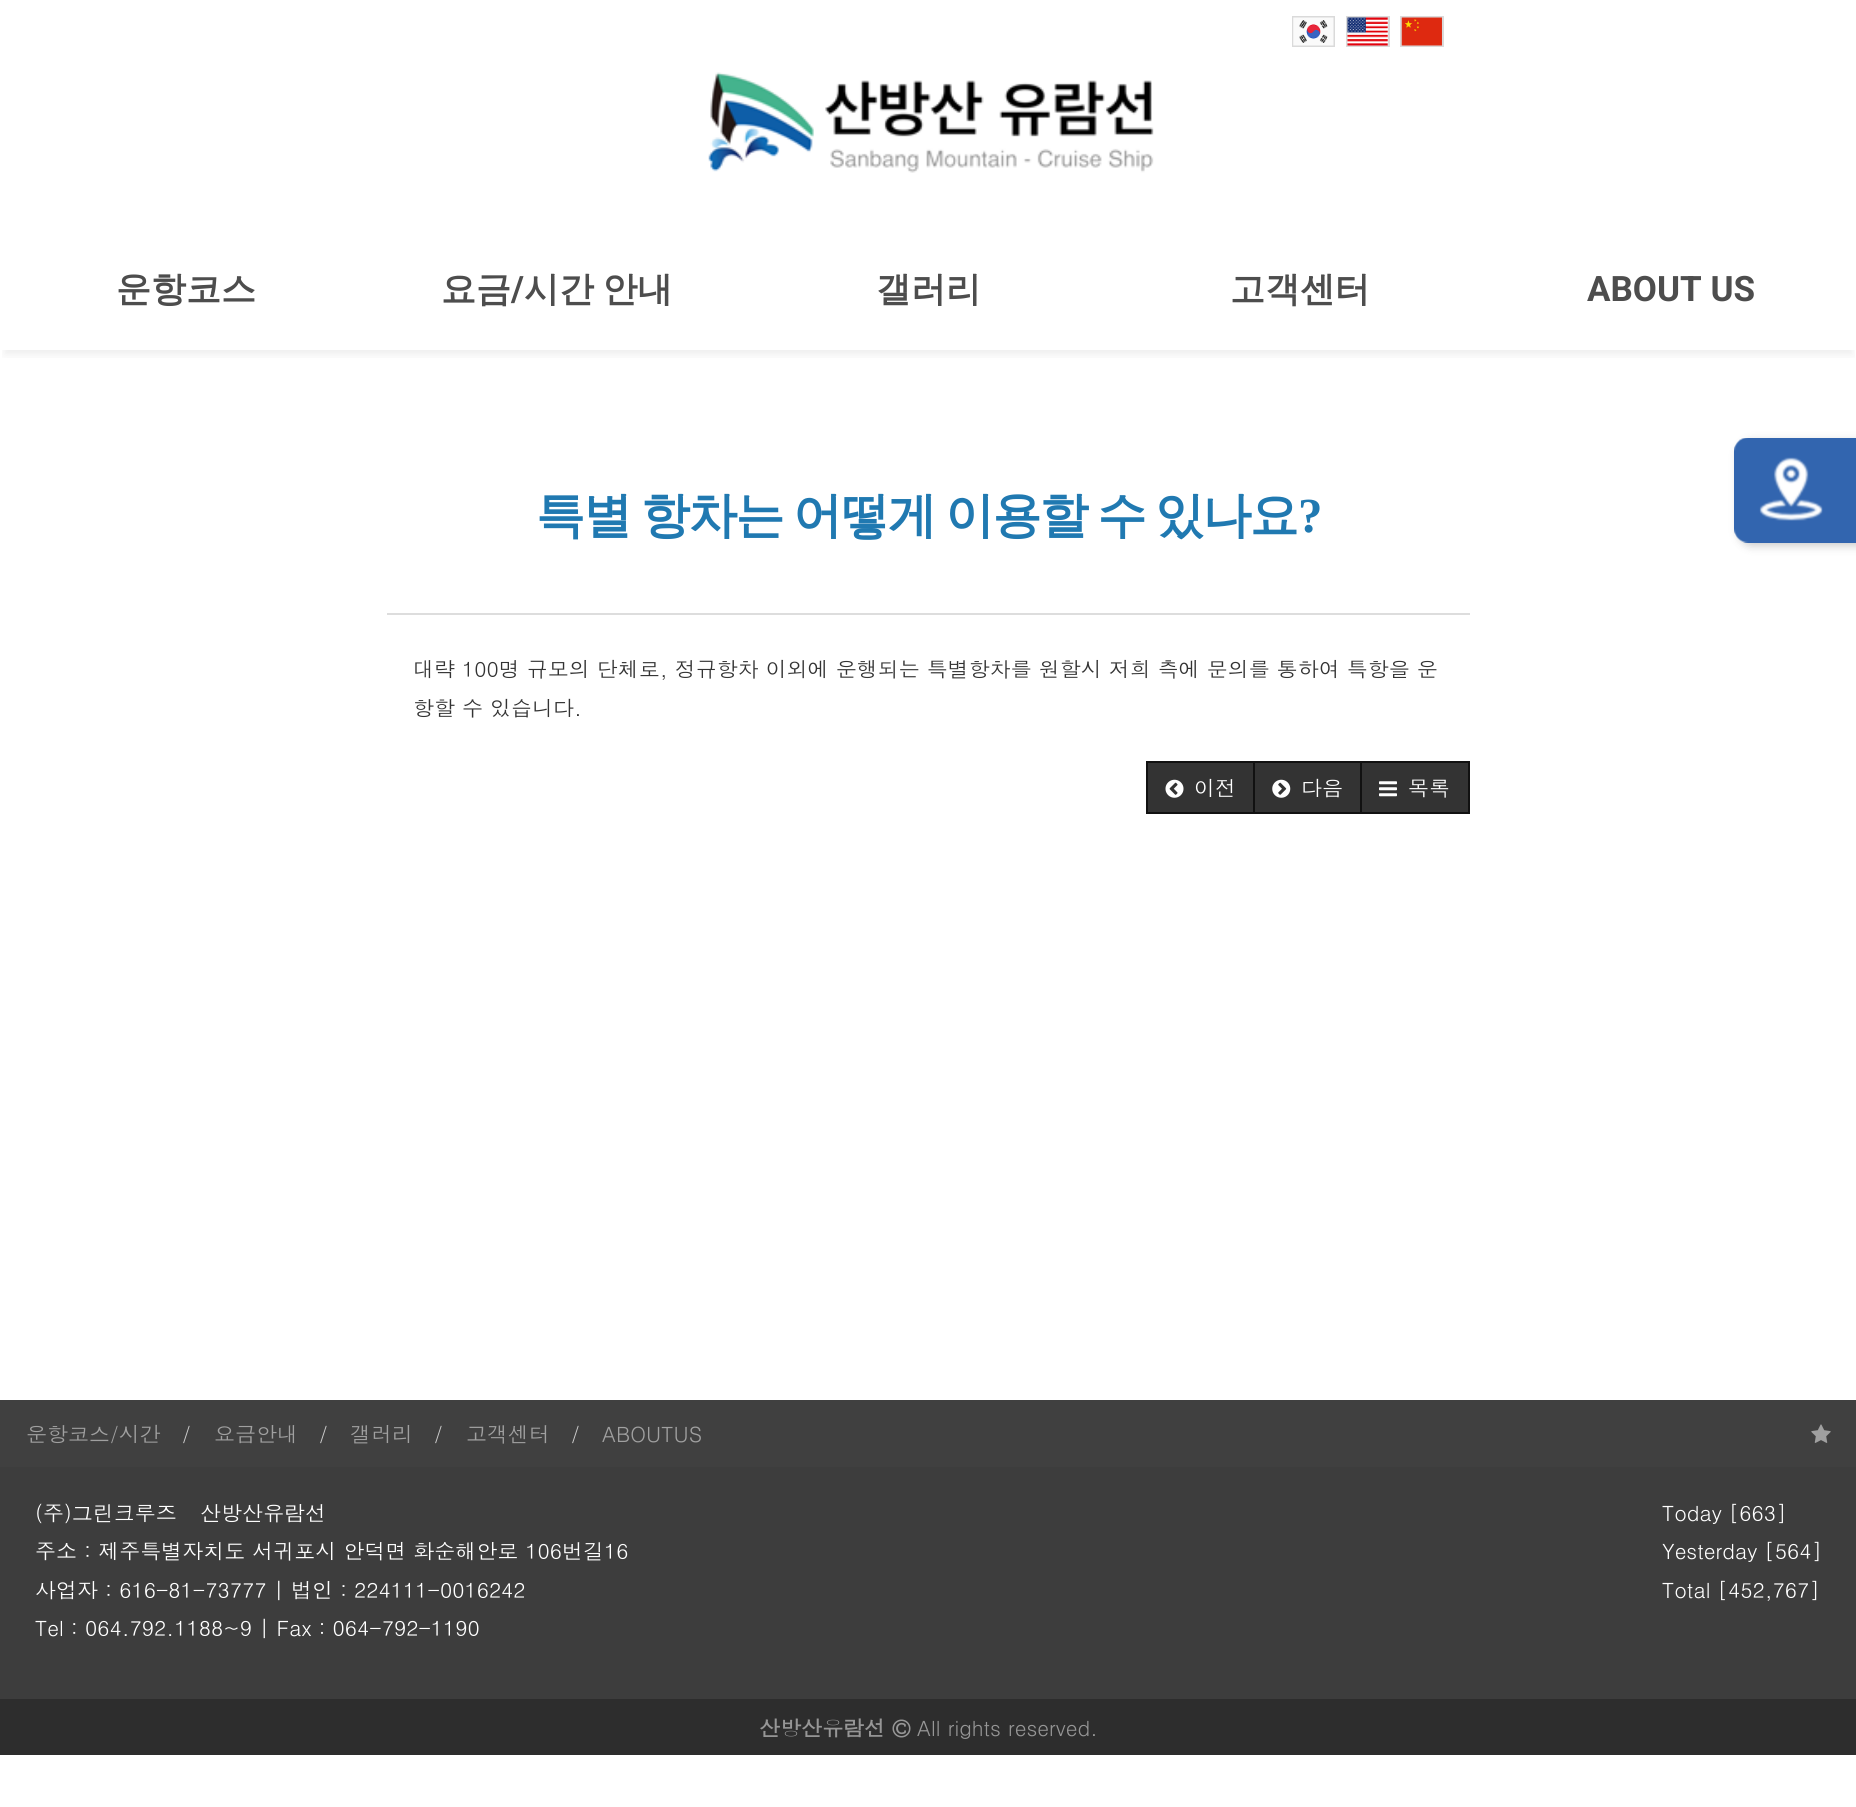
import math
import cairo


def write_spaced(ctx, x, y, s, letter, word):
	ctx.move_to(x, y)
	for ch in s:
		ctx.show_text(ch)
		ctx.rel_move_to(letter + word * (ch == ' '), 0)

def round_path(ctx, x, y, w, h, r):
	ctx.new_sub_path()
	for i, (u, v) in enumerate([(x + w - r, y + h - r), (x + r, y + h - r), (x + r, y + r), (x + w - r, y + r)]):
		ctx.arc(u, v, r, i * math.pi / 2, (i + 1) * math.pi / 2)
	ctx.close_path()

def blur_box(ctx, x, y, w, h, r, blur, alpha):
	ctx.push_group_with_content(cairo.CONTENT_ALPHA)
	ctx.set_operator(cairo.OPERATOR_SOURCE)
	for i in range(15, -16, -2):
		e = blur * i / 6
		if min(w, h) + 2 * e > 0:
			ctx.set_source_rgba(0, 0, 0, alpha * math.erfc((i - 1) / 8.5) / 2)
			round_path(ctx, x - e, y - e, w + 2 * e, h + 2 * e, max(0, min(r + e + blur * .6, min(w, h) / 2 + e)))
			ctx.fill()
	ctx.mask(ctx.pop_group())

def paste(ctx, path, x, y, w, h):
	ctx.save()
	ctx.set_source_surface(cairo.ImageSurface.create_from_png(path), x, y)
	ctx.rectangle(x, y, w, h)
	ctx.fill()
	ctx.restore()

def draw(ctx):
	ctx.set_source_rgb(1, 1, 1)
	ctx.paint()
	ctx.rectangle(1293, 17, 41, 29)
	ctx.set_source_rgb(0.855, 0.855, 0.855)
	ctx.stroke()
	paste(ctx, 'media/1.png', 1293, 17, 41, 29)
	ctx.rectangle(1347, 17, 42, 29)
	ctx.stroke()
	paste(ctx, 'media/2.png', 1347, 17, 41, 29)
	ctx.rectangle(1401, 17, 42, 29)
	ctx.stroke()
	paste(ctx, 'media/3.png', 1401, 17, 41, 29)
	paste(ctx, 'media/4.png', 708, 72, 446, 101)
	ctx.save()
	ctx.rectangle(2, 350, 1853, 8)
	ctx.clip()
	ctx.set_source_rgb(0.098, 0.098, 0.098)
	blur_box(ctx, 4, 240, 1849, 115, 0, 4.5, 0.07)
	ctx.restore()
	ctx.select_font_face('WenQuanYi Zen Hei', cairo.FONT_SLANT_NORMAL, cairo.FONT_WEIGHT_BOLD)
	ctx.set_font_size(35)
	ctx.set_source_rgb(0.302, 0.302, 0.302)
	ctx.move_to(116, 301)
	ctx.show_text('운항코스')
	ctx.move_to(441, 301)
	ctx.show_text('요금')
	ctx.select_font_face('Roboto', cairo.FONT_SLANT_NORMAL, cairo.FONT_WEIGHT_BOLD)
	ctx.move_to(511, 301)
	ctx.show_text('/')
	ctx.select_font_face('WenQuanYi Zen Hei', cairo.FONT_SLANT_NORMAL, cairo.FONT_WEIGHT_BOLD)
	write_spaced(ctx, 524, 301, '시간 안내', 0, -2)
	ctx.move_to(876, 301)
	ctx.show_text('갤러리')
	ctx.move_to(1230, 301)
	ctx.show_text('고객센터')
	ctx.select_font_face('Roboto', cairo.FONT_SLANT_NORMAL, cairo.FONT_WEIGHT_BOLD)
	ctx.move_to(1587, 301)
	ctx.show_text('ABOUT US')
	ctx.select_font_face('WenQuanYi Zen Hei', cairo.FONT_SLANT_NORMAL, cairo.FONT_WEIGHT_BOLD)
	ctx.set_font_size(49)
	ctx.set_source_rgb(0.125, 0.475, 0.694)
	write_spaced(ctx, 536, 532, '특별 항차는 어떻게 이용할 수 있나요', -1.75, -2.5)
	ctx.select_font_face('Liberation Serif', cairo.FONT_SLANT_NORMAL, cairo.FONT_WEIGHT_BOLD)
	write_spaced(ctx, 1298, 532, '?', -1.75, 0)
	ctx.set_source_rgb(0.867, 0.867, 0.867)
	ctx.rectangle(387, 613, 1083, 2)
	ctx.fill()
	ctx.select_font_face('Dotum')
	ctx.set_font_size(21)
	ctx.set_source_rgb(0.2, 0.2, 0.2)
	ctx.move_to(413, 677)
	ctx.show_text('대략 100명 규모의 단체로, 정규항차 이외에 운행되는 특별항차를 원할시 저희 측에 문의를 통하여 특항을 운')
	ctx.move_to(413, 716)
	ctx.show_text('항할 수 있습니다.')
	ctx.rectangle(1147, 762, 107, 51)
	ctx.fill_preserve()
	ctx.set_source_rgb(0.067, 0.067, 0.067)
	ctx.stroke()
	paste(ctx, 'media/5.png', 1165, 779, 19, 19)
	ctx.set_source_rgb(1, 1, 1)
	ctx.move_to(1194, 796)
	ctx.show_text('이전')
	ctx.set_source_rgb(0.2, 0.2, 0.2)
	ctx.rectangle(1254, 762, 107, 51)
	ctx.fill_preserve()
	ctx.set_source_rgb(0.067, 0.067, 0.067)
	ctx.stroke()
	paste(ctx, 'media/6.png', 1272, 779, 19, 19)
	ctx.set_source_rgb(1, 1, 1)
	ctx.move_to(1301, 796)
	ctx.show_text('다음')
	ctx.set_source_rgb(0.2, 0.2, 0.2)
	ctx.rectangle(1361, 762, 108, 51)
	ctx.fill_preserve()
	ctx.set_source_rgb(0.067, 0.067, 0.067)
	ctx.stroke()
	paste(ctx, 'media/7.png', 1379, 781, 18, 16)
	ctx.set_source_rgb(1, 1, 1)
	ctx.move_to(1408, 796)
	ctx.show_text('목록')
	ctx.set_source_rgb(0.251, 0.251, 0.251)
	ctx.rectangle(0, 1400, 1856, 67)
	ctx.fill()
	ctx.set_source_rgb(0.627, 0.627, 0.627)
	ctx.move_to(26, 1442)
	ctx.show_text('운항코스/시간')
	ctx.set_source_rgb(0.8, 0.8, 0.8)
	ctx.move_to(182, 1442)
	ctx.show_text('/')
	ctx.set_source_rgb(0.627, 0.627, 0.627)
	ctx.move_to(214, 1442)
	ctx.show_text('요금안내')
	ctx.set_source_rgb(0.8, 0.8, 0.8)
	ctx.move_to(319, 1442)
	ctx.show_text('/')
	ctx.set_source_rgb(0.627, 0.627, 0.627)
	ctx.move_to(350, 1442)
	ctx.show_text('갤러리')
	ctx.set_source_rgb(0.8, 0.8, 0.8)
	ctx.move_to(434, 1442)
	ctx.show_text('/')
	ctx.set_source_rgb(0.627, 0.627, 0.627)
	ctx.move_to(466, 1442)
	ctx.show_text('고객센터')
	ctx.set_source_rgb(0.8, 0.8, 0.8)
	ctx.move_to(571, 1442)
	ctx.show_text('/')
	ctx.set_source_rgb(0.627, 0.627, 0.627)
	ctx.move_to(602, 1442)
	ctx.show_text('ABOUTUS')
	paste(ctx, 'media/8.png', 1811, 1424, 20, 19)
	ctx.set_source_rgb(0.239, 0.239, 0.239)
	ctx.rectangle(0, 1467, 1856, 232)
	ctx.fill()
	ctx.set_source_rgb(1, 1, 1)
	for x, y, s in [
		(35, 1521, '(주)그린크루즈'),
		(200, 1521, '산방산유람선'),
		(35, 1559, '주소 : 제주특별자치도 서귀포시 안덕면 화순해안로 106번길16'),
		(35, 1598, '사업자 : 616-81-73777 | 법인 : 224111-0016242'),
		(35, 1636, 'Tel : 064.792.1188~9 | Fax : 064-792-1190'),
		(1662, 1521, 'Today [663]'),
		(1662, 1559, 'Yesterday [564]'),
		(1662, 1598, 'Total [452,767]'),
	]:
		ctx.move_to(x, y)
		ctx.show_text(s)
	ctx.set_source_rgb(0.176, 0.176, 0.176)
	ctx.rectangle(0, 1699, 1856, 56)
	ctx.fill()
	ctx.select_font_face('Dotum', cairo.FONT_SLANT_NORMAL, cairo.FONT_WEIGHT_BOLD)
	ctx.set_source_rgb(0.588, 0.588, 0.588)
	ctx.move_to(759, 1736)
	ctx.show_text('산방산유람선')
	paste(ctx, 'media/9.png', 892, 1719, 19, 19)
	ctx.select_font_face('Dotum')
	ctx.move_to(917, 1736)
	ctx.show_text('All rights reserved.')
	ctx.set_source_rgb(0, 0, 0)
	blur_box(ctx, 1738, 441, 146, 105, 14, 4.5, 0.2)
	paste(ctx, 'media/10.png', 1734, 438, 122, 105)


surface = cairo.ImageSurface(cairo.FORMAT_RGB24, 1856, 1807)
ctx = cairo.Context(surface)
options = cairo.FontOptions()
options.set_hint_metrics(cairo.HINT_METRICS_OFF)
options.set_hint_style(cairo.HINT_STYLE_NONE)
ctx.set_font_options(options)
ctx.set_miter_limit(4)
draw(ctx)
surface.write_to_png('image.png')
